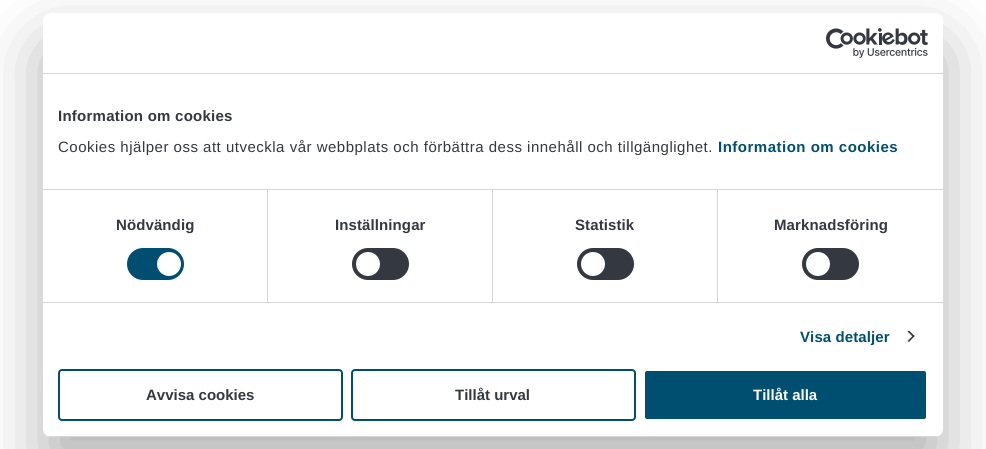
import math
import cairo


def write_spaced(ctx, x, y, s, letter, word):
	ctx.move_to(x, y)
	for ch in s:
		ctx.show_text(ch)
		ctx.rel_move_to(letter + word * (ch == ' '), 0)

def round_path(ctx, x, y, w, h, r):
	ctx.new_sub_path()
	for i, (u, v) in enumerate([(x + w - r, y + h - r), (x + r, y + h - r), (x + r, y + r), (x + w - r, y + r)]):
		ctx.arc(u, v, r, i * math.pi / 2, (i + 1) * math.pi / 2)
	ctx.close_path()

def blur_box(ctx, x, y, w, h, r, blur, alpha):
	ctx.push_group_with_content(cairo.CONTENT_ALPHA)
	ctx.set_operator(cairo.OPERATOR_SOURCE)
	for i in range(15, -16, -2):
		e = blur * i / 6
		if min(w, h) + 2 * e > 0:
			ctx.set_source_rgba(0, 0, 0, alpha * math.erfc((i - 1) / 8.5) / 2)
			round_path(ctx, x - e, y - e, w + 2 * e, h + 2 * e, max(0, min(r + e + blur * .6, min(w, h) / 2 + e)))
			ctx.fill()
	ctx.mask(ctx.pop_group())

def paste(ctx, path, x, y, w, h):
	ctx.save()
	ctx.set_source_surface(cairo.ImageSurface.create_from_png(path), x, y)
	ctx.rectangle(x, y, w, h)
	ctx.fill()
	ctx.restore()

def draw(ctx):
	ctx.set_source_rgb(1, 1, 1)
	ctx.paint()
	ctx.set_source_rgb(0, 0, 0)
	blur_box(ctx, 43, 45, 900, 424, 8, 34, 0.3)
	ctx.set_source_rgb(1, 1, 1)
	round_path(ctx, 43, 13, 900, 424, 8)
	ctx.fill()
	ctx.set_source_rgb(0.839, 0.839, 0.839)
	ctx.rectangle(43, 73, 900, 1)
	ctx.fill()
	paste(ctx, 'media/1.png', 826, 28, 102, 30)
	ctx.rectangle(43, 189, 900, 1)
	ctx.fill()
	ctx.select_font_face('Liberation Sans', cairo.FONT_SLANT_NORMAL, cairo.FONT_WEIGHT_BOLD)
	ctx.set_font_size(15)
	ctx.set_source_rgb(0.204, 0.22, 0.255)
	write_spaced(ctx, 58, 121, 'Information om cookies', 0.25, 0)
	ctx.select_font_face('Liberation Sans')
	write_spaced(ctx, 58, 152, 'Cookies hjälper oss att utveckla vår webbplats och förbättra dess innehåll och tillgänglighet.', 0.5, 0)
	ctx.select_font_face('Liberation Sans', cairo.FONT_SLANT_NORMAL, cairo.FONT_WEIGHT_BOLD)
	ctx.set_source_rgb(0, 0.31, 0.443)
	write_spaced(ctx, 718, 152, 'Information om cookies', 0.5, 0)
	ctx.set_source_rgb(0.839, 0.839, 0.839)
	ctx.rectangle(43, 302, 900, 1)
	ctx.fill()
	ctx.rectangle(267, 190, 1, 112)
	ctx.fill()
	ctx.set_source_rgb(0.204, 0.22, 0.255)
	write_spaced(ctx, 116, 230, 'Nödvändig', 0.1, 0)
	ctx.set_source_rgb(0, 0.31, 0.443)
	round_path(ctx, 127, 248, 57, 32, 16)
	ctx.fill()
	ctx.set_source_rgb(1, 1, 1)
	ctx.arc(169, 264, 12, 0, 2 * math.pi)
	ctx.fill()
	ctx.set_source_rgb(0.839, 0.839, 0.839)
	ctx.rectangle(492, 190, 1, 112)
	ctx.fill()
	ctx.set_source_rgb(0.204, 0.22, 0.255)
	write_spaced(ctx, 335, 230, 'Inställningar', 0.1, 0)
	round_path(ctx, 352, 248, 57, 32, 16)
	ctx.fill()
	ctx.set_source_rgb(1, 1, 1)
	ctx.arc(368, 264, 12, 0, 2 * math.pi)
	ctx.fill()
	ctx.set_source_rgb(0.839, 0.839, 0.839)
	ctx.rectangle(717, 190, 1, 112)
	ctx.fill()
	ctx.set_source_rgb(0.204, 0.22, 0.255)
	write_spaced(ctx, 575, 230, 'Statistik', 0.1, 0)
	round_path(ctx, 577, 248, 57, 32, 16)
	ctx.fill()
	ctx.set_source_rgb(1, 1, 1)
	ctx.arc(593, 264, 12, 0, 2 * math.pi)
	ctx.fill()
	ctx.set_source_rgb(0.204, 0.22, 0.255)
	write_spaced(ctx, 774, 230, 'Marknadsföring', 0.1, 0)
	round_path(ctx, 802, 248, 57, 32, 16)
	ctx.fill()
	ctx.set_source_rgb(1, 1, 1)
	ctx.arc(818, 264, 12, 0, 2 * math.pi)
	ctx.fill()
	ctx.set_source_rgb(0, 0.31, 0.443)
	write_spaced(ctx, 800, 342, 'Visa detaljer', 0.1, 0)
	ctx.set_source_rgb(0.204, 0.22, 0.255)
	ctx.new_path()
	ctx.move_to(909, 330.5)
	ctx.line_to(914.5, 336)
	ctx.line_to(913.5, 337.5)
	ctx.line_to(907.5, 331.5)
	ctx.close_path()
	ctx.fill()
	ctx.new_path()
	ctx.move_to(913.5, 335)
	ctx.line_to(914.5, 336)
	ctx.line_to(909, 342)
	ctx.line_to(907.5, 341)
	ctx.close_path()
	ctx.fill()
	ctx.save()
	round_path(ctx, 43, 13, 900, 424, 8)
	ctx.clip()
	ctx.set_source_rgb(0.839, 0.839, 0.839)
	ctx.rectangle(43, 436, 900, 1)
	ctx.fill()
	ctx.restore()
	round_path(ctx, 59, 370, 283, 50, 3)
	ctx.set_source_rgb(0, 0.31, 0.443)
	ctx.stroke()
	ctx.set_source_rgb(0.204, 0.22, 0.255)
	ctx.move_to(146, 400)
	ctx.show_text('Avvisa cookies')
	round_path(ctx, 352, 370, 283, 50, 3)
	ctx.set_source_rgb(0, 0.31, 0.443)
	ctx.stroke()
	ctx.set_source_rgb(0.204, 0.22, 0.255)
	ctx.move_to(455, 400)
	ctx.show_text('Tillåt urval')
	ctx.set_source_rgb(0, 0.31, 0.443)
	round_path(ctx, 644, 370, 283, 50, 3)
	ctx.fill_preserve()
	ctx.set_source_rgb(1, 1, 1)
	ctx.stroke()
	ctx.move_to(753, 400)
	ctx.show_text('Tillåt alla')


surface = cairo.ImageSurface(cairo.FORMAT_RGB24, 986, 449)
ctx = cairo.Context(surface)
options = cairo.FontOptions()
options.set_hint_metrics(cairo.HINT_METRICS_OFF)
options.set_hint_style(cairo.HINT_STYLE_NONE)
ctx.set_font_options(options)
ctx.set_miter_limit(4)
draw(ctx)
surface.write_to_png('image.png')
